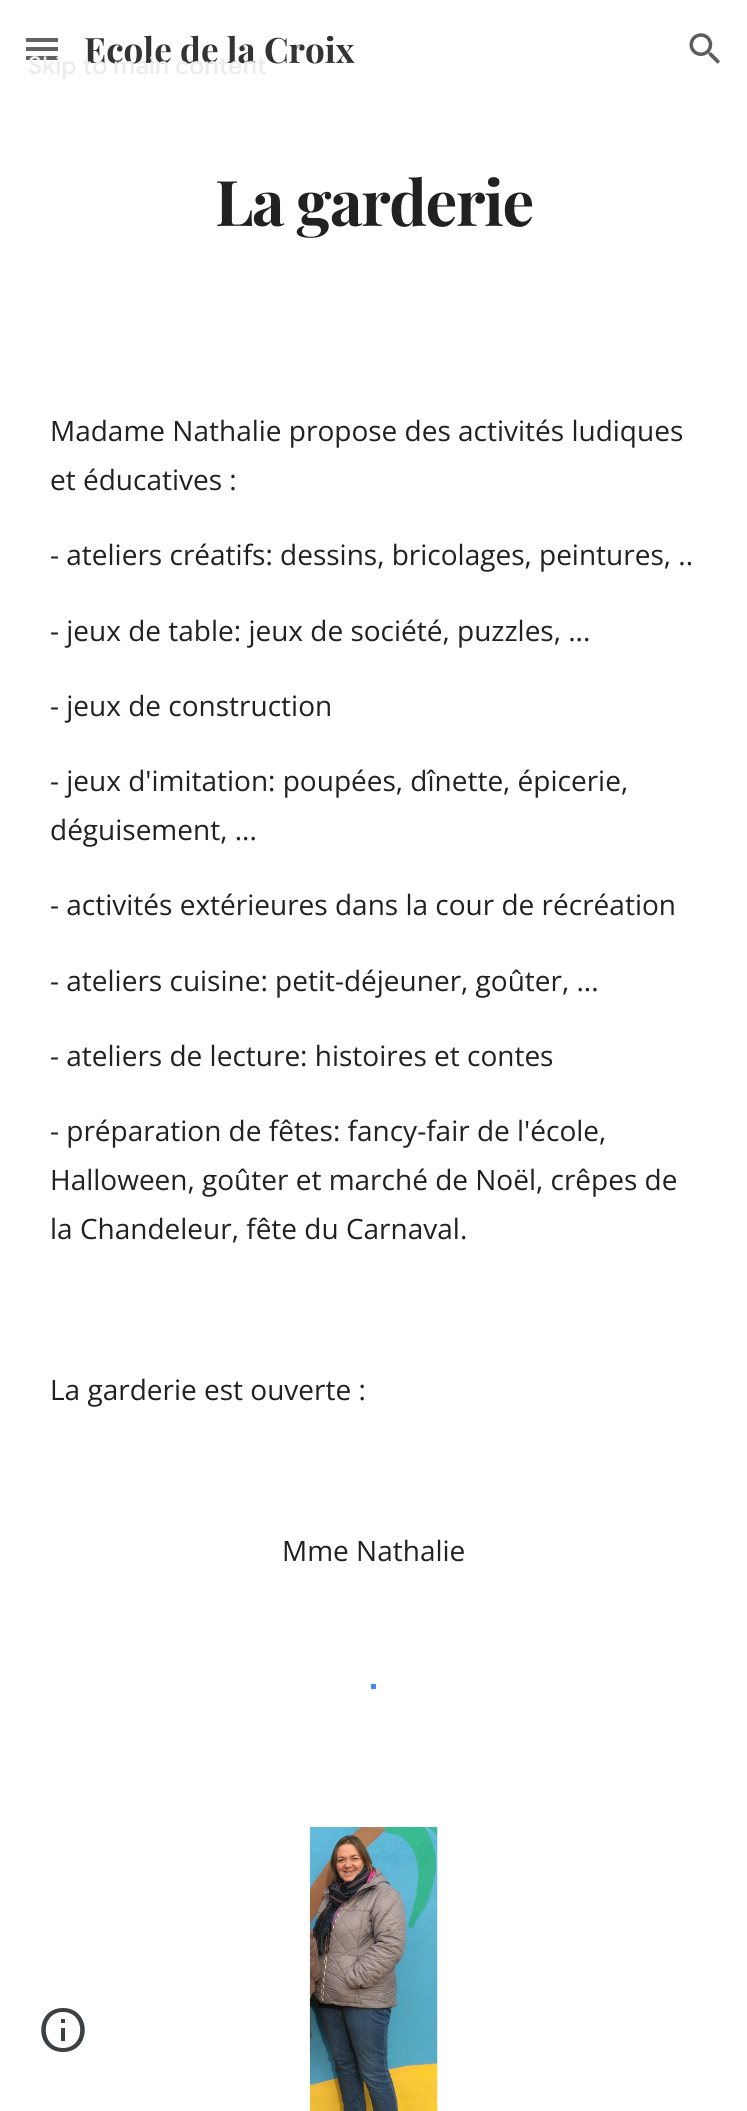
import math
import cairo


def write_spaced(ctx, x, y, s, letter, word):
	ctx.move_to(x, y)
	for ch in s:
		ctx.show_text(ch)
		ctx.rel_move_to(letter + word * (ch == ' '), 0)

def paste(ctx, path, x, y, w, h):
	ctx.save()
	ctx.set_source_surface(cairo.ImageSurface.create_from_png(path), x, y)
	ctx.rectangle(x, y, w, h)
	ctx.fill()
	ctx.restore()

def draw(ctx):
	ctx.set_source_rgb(1, 1, 1)
	ctx.paint()
	ctx.set_source_rgb(0.384, 0.384, 0.384)
	ctx.rectangle(26, 38, 32, 4)
	ctx.rectangle(26, 47, 32, 4)
	ctx.rectangle(26, 56, 32, 4)
	ctx.fill()
	ctx.select_font_face('Playfair Display', cairo.FONT_SLANT_NORMAL, cairo.FONT_WEIGHT_BOLD)
	ctx.set_font_size(35)
	ctx.set_source_rgb(0.2, 0.2, 0.2)
	ctx.move_to(84, 63)
	ctx.show_text('Ecole de la Croix')
	paste(ctx, 'media/1.png', 689, 33, 31, 31)
	ctx.set_font_size(63)
	ctx.set_source_rgb(0.129, 0.129, 0.129)
	write_spaced(ctx, 215, 226, 'La garderie', -1.4, 0)
	ctx.select_font_face('Open Sans')
	ctx.set_font_size(28)
	for x, y, s in [
		(50, 441, 'Madame Nathalie propose des activités ludiques'),
		(50, 490, 'et éducatives :'),
		(50, 565, '- ateliers créatifs: dessins, bricolages, peintures, ..'),
		(50, 641, '- jeux de table: jeux de société, puzzles, ...'),
		(50, 716, '- jeux de construction'),
		(50, 791, '- jeux d\'imitation: poupées, dînette, épicerie,'),
		(50, 840, 'déguisement, ...'),
		(50, 915, '- activités extérieures dans la cour de récréation'),
		(50, 991, '- ateliers cuisine: petit-déjeuner, goûter, ...'),
		(50, 1066, '- ateliers de lecture: histoires et contes'),
		(50, 1141, '- préparation de fêtes: fancy-fair de l\'école,'),
		(50, 1190, 'Halloween, goûter et marché de Noël, crêpes de'),
		(50, 1239, 'la Chandeleur, fête du Carnaval.'),
		(50, 1400, 'La garderie est ouverte :'),
		(282, 1561, 'Mme Nathalie'),
	]:
		ctx.move_to(x, y)
		ctx.show_text(s)
	ctx.save()
	ctx.rectangle(350, 1684, 25, 49)
	ctx.clip()
	ctx.new_path()
	ctx.move_to(371.5, 1686.5)
	ctx.curve_to(400.5, 1684, 404, 1727.5, 375.5, 1730)
	ctx.set_source_rgb(0.267, 0.525, 0.957)
	ctx.set_line_width(5.2)
	ctx.stroke()
	ctx.restore()
	ctx.save()
	ctx.rectangle(371, 1684, 5, 49)
	ctx.clip()
	ctx.new_path()
	ctx.move_to(359, 1723.5)
	ctx.curve_to(341.5, 1705.5, 364, 1675, 385.5, 1690)
	ctx.curve_to(390, 1693, 393, 1698, 394, 1703.5)
	ctx.curve_to(395.5, 1711, 393.5, 1718.5, 388.5, 1723.5)
	ctx.set_source_rgb(0.267, 0.525, 0.957)
	ctx.set_line_width(5.2)
	ctx.stroke()
	ctx.restore()
	ctx.save()
	ctx.rectangle(375, 1684, 24, 49)
	ctx.clip()
	ctx.new_path()
	ctx.move_to(371.5, 1730)
	ctx.curve_to(343, 1727.5, 347, 1684, 375.5, 1686.5)
	ctx.set_source_rgb(0.267, 0.525, 0.957)
	ctx.set_line_width(5.2)
	ctx.stroke()
	ctx.restore()
	ctx.save()
	ctx.rectangle(350, 1684, 25, 49)
	ctx.clip()
	ctx.new_path()
	ctx.move_to(371.5, 1686.5)
	ctx.curve_to(400.5, 1684, 404, 1727.5, 375.5, 1730)
	ctx.set_source_rgb(0.267, 0.525, 0.957)
	ctx.set_line_width(5.2)
	ctx.stroke()
	ctx.restore()
	ctx.save()
	ctx.rectangle(375, 1684, 24, 49)
	ctx.clip()
	ctx.new_path()
	ctx.move_to(371.5, 1730)
	ctx.curve_to(343, 1727.5, 347, 1684, 375.5, 1686.5)
	ctx.set_source_rgb(0.267, 0.525, 0.957)
	ctx.set_line_width(5.2)
	ctx.stroke()
	ctx.restore()
	ctx.save()
	ctx.rectangle(350, 1684, 25, 49)
	ctx.clip()
	ctx.new_path()
	ctx.move_to(371.5, 1686.5)
	ctx.curve_to(400.5, 1684, 404, 1727.5, 375.5, 1730)
	ctx.set_source_rgb(0.267, 0.525, 0.957)
	ctx.set_line_width(5.2)
	ctx.stroke()
	ctx.restore()
	ctx.save()
	ctx.rectangle(375, 1684, 24, 49)
	ctx.clip()
	ctx.new_path()
	ctx.move_to(371.5, 1730)
	ctx.curve_to(343, 1727.5, 347, 1684, 375.5, 1686.5)
	ctx.set_source_rgb(0.267, 0.525, 0.957)
	ctx.set_line_width(5.2)
	ctx.stroke()
	ctx.restore()
	ctx.save()
	ctx.rectangle(350, 1684, 25, 49)
	ctx.clip()
	ctx.new_path()
	ctx.move_to(371.5, 1686.5)
	ctx.curve_to(400.5, 1684, 404, 1727.5, 375.5, 1730)
	ctx.set_source_rgb(0.267, 0.525, 0.957)
	ctx.set_line_width(5.2)
	ctx.stroke()
	ctx.restore()
	ctx.save()
	ctx.rectangle(375, 1684, 24, 49)
	ctx.clip()
	ctx.new_path()
	ctx.move_to(371.5, 1730)
	ctx.curve_to(343, 1727.5, 347, 1684, 375.5, 1686.5)
	ctx.set_source_rgb(0.267, 0.525, 0.957)
	ctx.set_line_width(5.2)
	ctx.stroke()
	ctx.restore()
	paste(ctx, 'media/2.png', 309, 1827, 129, 284)
	ctx.set_source_rgb(0.235, 0.251, 0.263)
	ctx.new_path()
	ctx.move_to(61, 2041)
	ctx.line_to(65, 2041)
	ctx.line_to(65, 2028)
	ctx.line_to(61, 2028)
	ctx.close_path()
	ctx.move_to(63, 2008)
	ctx.curve_to(34, 2008, 34, 2052, 63, 2052)
	ctx.curve_to(92, 2052, 92, 2008, 63, 2008)
	ctx.close_path()
	ctx.move_to(63, 2048)
	ctx.curve_to(40, 2048, 40, 2012, 63, 2012)
	ctx.curve_to(86, 2012, 86, 2048, 63, 2048)
	ctx.close_path()
	ctx.move_to(61, 2023)
	ctx.line_to(65, 2023)
	ctx.line_to(65, 2019)
	ctx.line_to(61, 2019)
	ctx.close_path()
	ctx.fill()
	ctx.select_font_face('Google Sans Medium')
	ctx.set_font_size(24.5)
	ctx.set_source_rgb(0.922, 0.922, 0.922)
	write_spaced(ctx, 28, 74, 'Skip to main content', 0.25, 0)


surface = cairo.ImageSurface(cairo.FORMAT_RGB24, 747, 2111)
ctx = cairo.Context(surface)
options = cairo.FontOptions()
options.set_hint_metrics(cairo.HINT_METRICS_OFF)
options.set_hint_style(cairo.HINT_STYLE_NONE)
ctx.set_font_options(options)
ctx.set_miter_limit(4)
draw(ctx)
surface.write_to_png('image.png')
